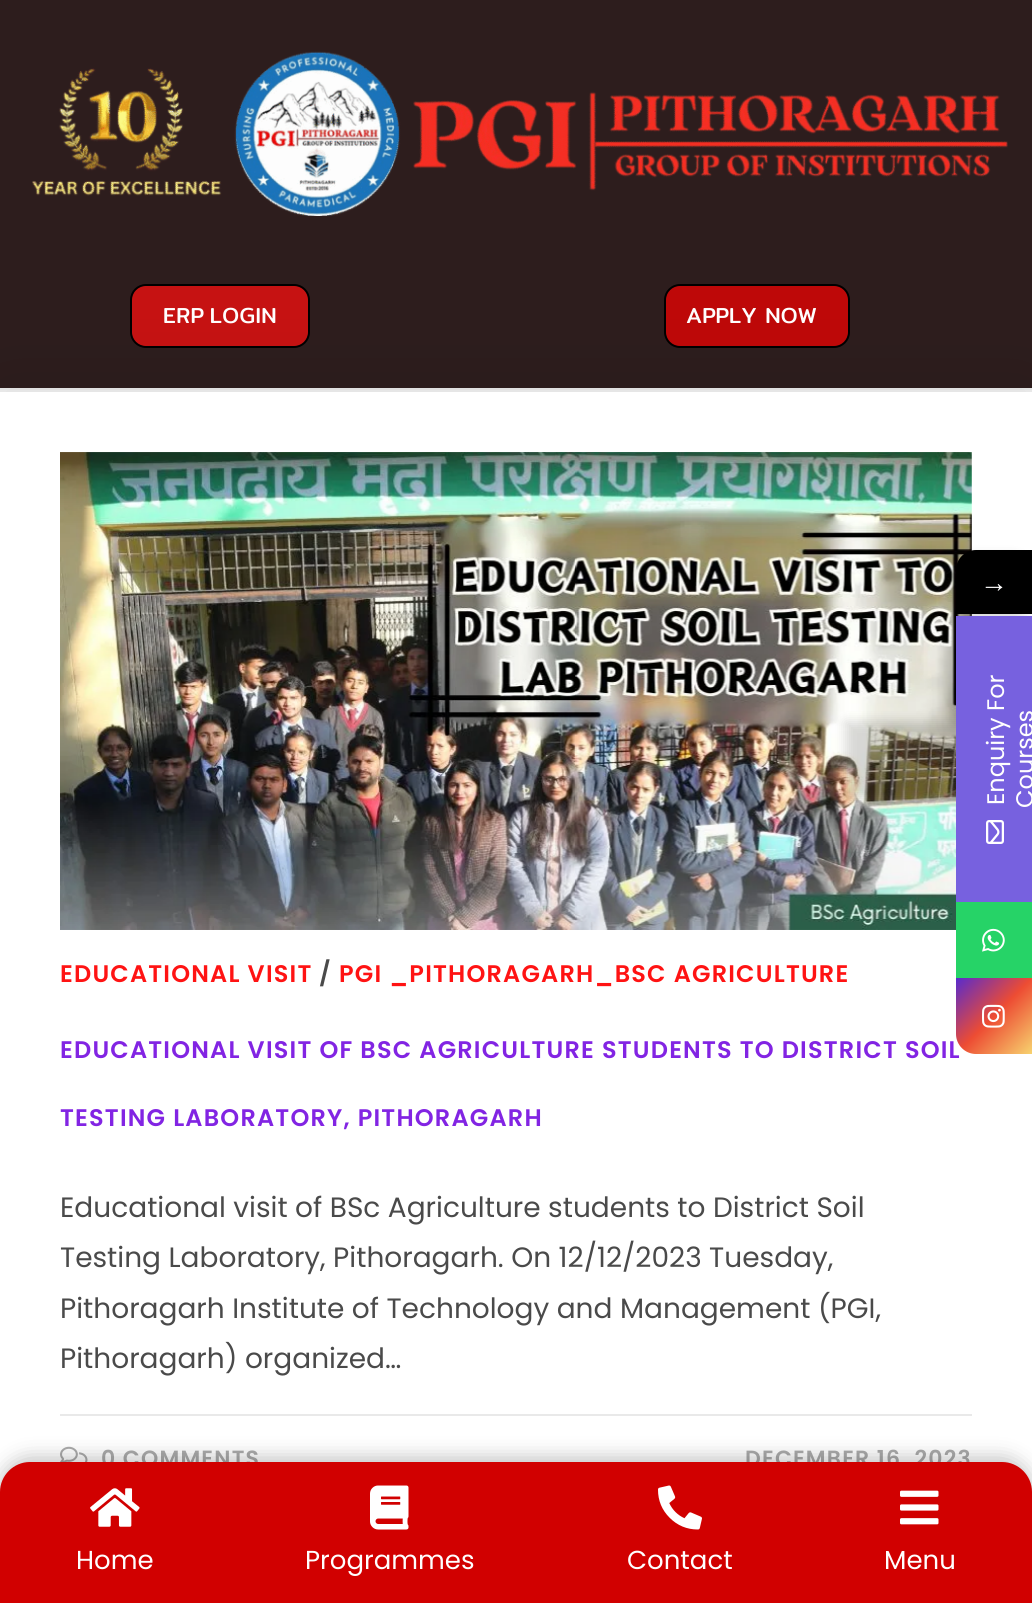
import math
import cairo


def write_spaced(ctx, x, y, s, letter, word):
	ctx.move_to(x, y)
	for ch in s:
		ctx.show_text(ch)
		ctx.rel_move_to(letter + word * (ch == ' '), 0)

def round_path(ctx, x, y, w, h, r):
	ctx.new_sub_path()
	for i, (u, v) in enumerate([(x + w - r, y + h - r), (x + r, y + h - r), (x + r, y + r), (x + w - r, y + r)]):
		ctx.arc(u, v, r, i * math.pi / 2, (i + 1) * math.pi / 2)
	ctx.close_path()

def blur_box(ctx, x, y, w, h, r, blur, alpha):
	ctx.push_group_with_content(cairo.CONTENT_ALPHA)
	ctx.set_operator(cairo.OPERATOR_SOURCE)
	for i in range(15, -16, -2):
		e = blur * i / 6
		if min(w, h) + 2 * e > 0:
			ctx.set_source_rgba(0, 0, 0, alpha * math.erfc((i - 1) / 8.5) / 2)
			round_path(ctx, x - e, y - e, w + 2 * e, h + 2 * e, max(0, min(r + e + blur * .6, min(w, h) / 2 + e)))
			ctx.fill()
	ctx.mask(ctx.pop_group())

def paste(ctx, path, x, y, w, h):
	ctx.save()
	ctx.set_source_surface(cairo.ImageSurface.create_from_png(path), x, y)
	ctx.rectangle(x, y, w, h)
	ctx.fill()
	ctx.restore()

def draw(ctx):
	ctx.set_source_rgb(0.945, 0.945, 0.945)
	ctx.paint()
	ctx.set_source_rgb(0.918, 0.918, 0.918)
	ctx.rectangle(0, 388, 1032, 2)
	ctx.fill()
	ctx.set_source_rgb(0.176, 0.114, 0.114)
	ctx.rectangle(0, 0, 1032, 388)
	ctx.fill()
	paste(ctx, 'media/1.png', 32, 51, 976, 165)
	ctx.set_source_rgb(0.776, 0.071, 0.071)
	round_path(ctx, 131, 285, 178, 62, 15)
	ctx.fill_preserve()
	ctx.set_source_rgb(0, 0, 0)
	ctx.stroke()
	ctx.select_font_face('Mitr')
	ctx.set_font_size(22)
	ctx.set_source_rgb(1, 0.996, 0.996)
	write_spaced(ctx, 163, 323, 'ERP LOGIN', 0.5, -4)
	ctx.set_source_rgb(0.745, 0.035, 0.035)
	round_path(ctx, 665, 285, 184, 62, 15)
	ctx.fill_preserve()
	ctx.set_source_rgb(0, 0, 0)
	ctx.stroke()
	ctx.set_source_rgb(1, 0.996, 0.996)
	ctx.move_to(686, 323)
	ctx.show_text('APPLY NOW')
	ctx.set_source_rgb(0, 0, 0)
	blur_box(ctx, 0, 392, 1032, 1140, 0, 40, 0.1)
	ctx.set_source_rgb(1, 1, 1)
	ctx.rectangle(0, 392, 1032, 1100)
	ctx.fill()
	paste(ctx, 'media/2.png', 60, 452, 912, 478)
	ctx.select_font_face('Poppins SemiBold')
	ctx.set_font_size(24)
	ctx.set_source_rgb(1, 0.078, 0.078)
	write_spaced(ctx, 60, 982, 'EDUCATIONAL VISIT', 1.2, 0)
	ctx.set_source_rgb(0.29, 0.29, 0.29)
	write_spaced(ctx, 319, 982, '/', 1.2, 0)
	ctx.set_source_rgb(1, 0.078, 0.078)
	write_spaced(ctx, 339, 982, 'PGI _PITHORAGARH_BSC AGRICULTURE', 1.2, 0)
	ctx.set_source_rgb(0.51, 0.141, 0.89)
	write_spaced(ctx, 60, 1058, 'EDUCATIONAL VISIT OF BSC AGRICULTURE STUDENTS TO DISTRICT SOIL', 1.2, 0)
	write_spaced(ctx, 60, 1126, 'TESTING LABORATORY, PITHORAGARH', 1.2, 0)
	ctx.select_font_face('Poppins')
	ctx.set_font_size(28)
	ctx.set_source_rgb(0.29, 0.29, 0.29)
	for x, y, s in [
		(60, 1217, 'Educational visit of BSc Agriculture students to District Soil'),
		(60, 1267, 'Testing Laboratory, Pithoragarh. On 12/12/2023 Tuesday,'),
		(60, 1318, 'Pithoragarh Institute of Technology and Management (PGI,'),
		(60, 1368, 'Pithoragarh) organized…'),
	]:
		ctx.move_to(x, y)
		ctx.show_text(s)
	ctx.set_source_rgb(0.914, 0.914, 0.914)
	ctx.rectangle(60, 1414, 912, 2)
	ctx.fill()
	paste(ctx, 'media/3.png', 60, 1446, 28, 16)
	ctx.select_font_face('Poppins SemiBold')
	ctx.set_font_size(22)
	ctx.set_source_rgb(0.671, 0.671, 0.671)
	write_spaced(ctx, 101, 1466, '0 COMMENTS', 1.2, 0)
	write_spaced(ctx, 745, 1466, 'DECEMBER 16, 2023', 1.2, 0)
	ctx.set_source_rgb(0, 0, 0)
	blur_box(ctx, 956, 556, 76, 64, 20, 6, 0.16)
	ctx.set_source_rgb(0, 0, 0)
	ctx.new_path()
	ctx.move_to(976, 550)
	ctx.line_to(1032, 550)
	ctx.line_to(1032, 614)
	ctx.line_to(956, 614)
	ctx.line_to(956, 570)
	ctx.curve_to(956, 559, 965, 550, 976, 550)
	ctx.close_path()
	ctx.fill()
	ctx.select_font_face('Liberation Serif')
	ctx.set_font_size(28)
	ctx.set_source_rgb(1, 0.996, 0.996)
	ctx.move_to(980, 592)
	ctx.show_text('→')
	ctx.set_source_rgb(0, 0, 0)
	blur_box(ctx, 846, 722, 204, 76, 0, 6, 0.16)
	ctx.set_source_rgb(0.467, 0.38, 0.875)
	ctx.rectangle(956, 616, 76, 286)
	ctx.fill()
	ctx.select_font_face('Poppins')
	ctx.set_font_size(24)
	ctx.set_source_rgb(1, 0.996, 0.996)
	ctx.save()
	ctx.translate(1004, 805)
	ctx.rotate(-90 * math.pi / 180)
	ctx.move_to(0, 0)
	ctx.show_text('Enquiry For')
	ctx.restore()
	ctx.save()
	ctx.translate(1033, 808)
	ctx.rotate(-90 * math.pi / 180)
	ctx.move_to(0, 0)
	ctx.show_text('Courses')
	ctx.restore()
	paste(ctx, 'media/4.png', 986, 820, 18, 24)
	ctx.set_source_rgb(0.149, 0.827, 0.404)
	ctx.rectangle(956, 902, 76, 76)
	ctx.fill()
	paste(ctx, 'media/5.png', 982, 928, 23, 24)
	gradient = cairo.LinearGradient(956, 978, 1032, 1054)
	gradient.add_color_stop_rgba(0, 0.345, 0.169, 0.804, 1)
	gradient.add_color_stop_rgba(0.5, 0.929, 0.298, 0.2, 1)
	gradient.add_color_stop_rgba(1, 0.969, 0.827, 0.435, 1)
	ctx.set_source(gradient)
	ctx.new_path()
	ctx.move_to(956, 978)
	ctx.line_to(1032, 978)
	ctx.line_to(1032, 1054)
	ctx.line_to(976, 1054)
	ctx.curve_to(965, 1054, 956, 1045, 956, 1034)
	ctx.close_path()
	ctx.fill()
	paste(ctx, 'media/6.png', 982, 1004, 23, 24)
	ctx.set_source_rgb(0, 0, 0)
	blur_box(ctx, 0, 1458, 1032, 142, 30, 10, 0.25)
	ctx.set_source_rgb(0.82, 0, 0)
	ctx.new_path()
	ctx.move_to(30, 1462)
	ctx.line_to(1002, 1462)
	ctx.curve_to(1018.5, 1462, 1032, 1475.5, 1032, 1492)
	ctx.line_to(1032, 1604)
	ctx.line_to(0, 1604)
	ctx.line_to(0, 1492)
	ctx.curve_to(0, 1475.5, 13.5, 1462, 30, 1462)
	ctx.close_path()
	ctx.fill()
	paste(ctx, 'media/7.png', 90, 1488, 50, 39)
	ctx.set_font_size(26)
	ctx.set_source_rgb(1, 0.996, 0.996)
	ctx.move_to(76, 1569)
	ctx.show_text('Home')
	paste(ctx, 'media/8.png', 370, 1485, 39, 45)
	ctx.move_to(305, 1569)
	ctx.show_text('Programmes')
	paste(ctx, 'media/9.png', 658, 1485, 44, 45)
	ctx.move_to(627, 1569)
	ctx.show_text('Contact')
	paste(ctx, 'media/10.png', 900, 1490, 39, 35)
	ctx.move_to(884, 1569)
	ctx.show_text('Menu')


surface = cairo.ImageSurface(cairo.FORMAT_RGB24, 1032, 1603)
ctx = cairo.Context(surface)
options = cairo.FontOptions()
options.set_hint_metrics(cairo.HINT_METRICS_OFF)
options.set_hint_style(cairo.HINT_STYLE_NONE)
ctx.set_font_options(options)
ctx.set_miter_limit(4)
draw(ctx)
surface.write_to_png('image.png')
